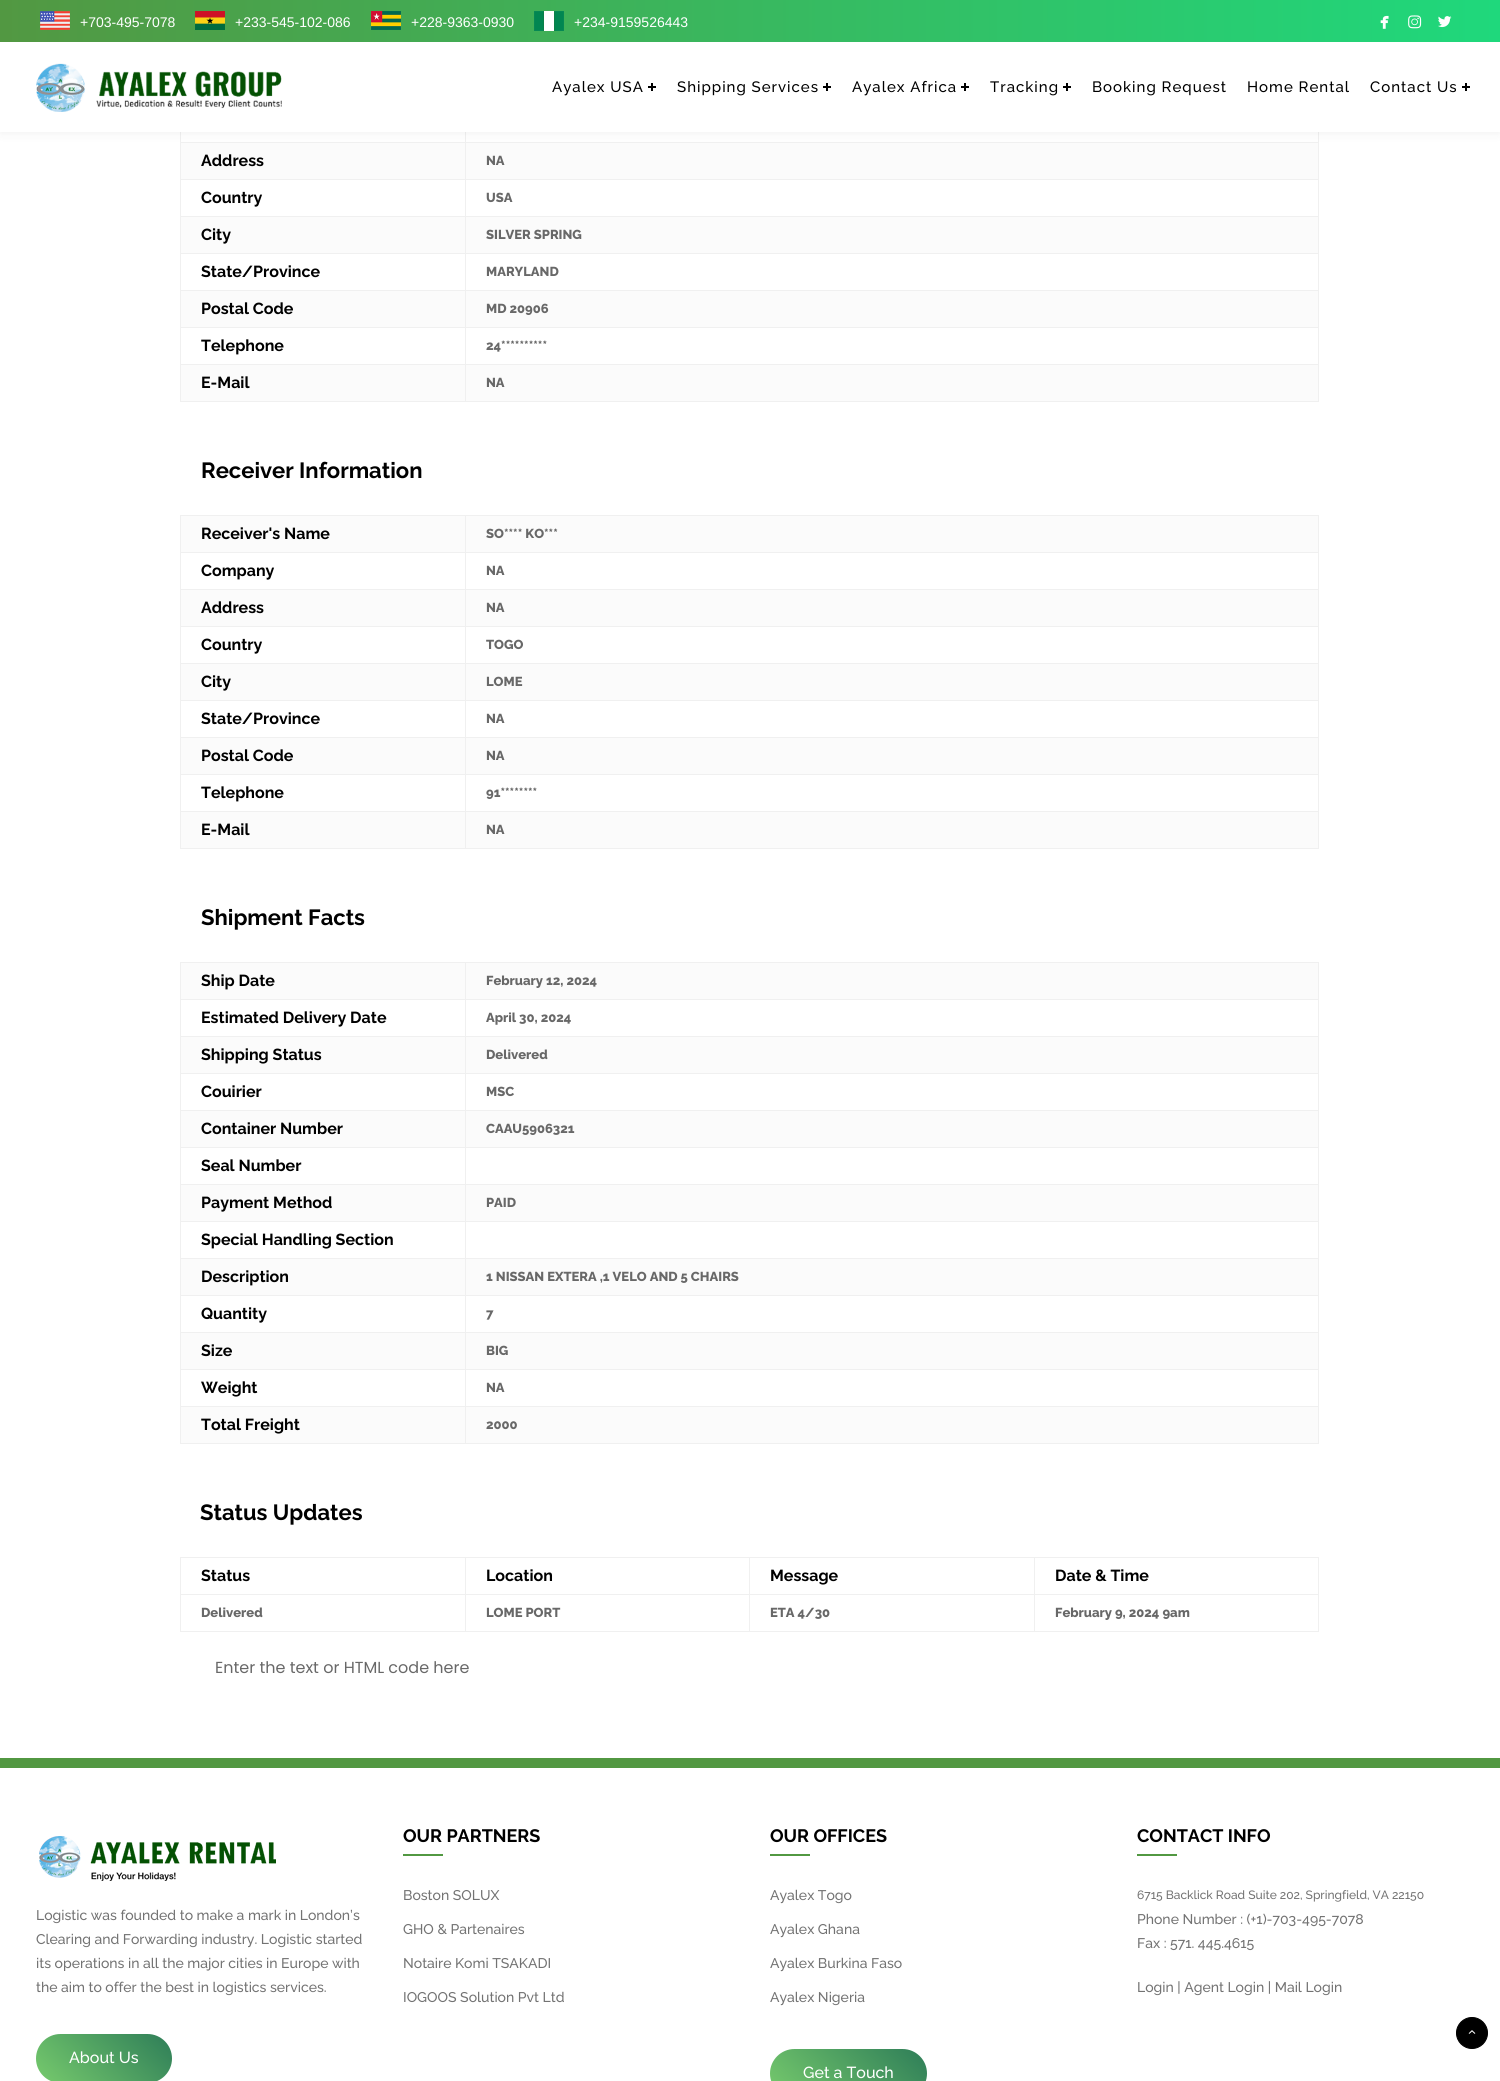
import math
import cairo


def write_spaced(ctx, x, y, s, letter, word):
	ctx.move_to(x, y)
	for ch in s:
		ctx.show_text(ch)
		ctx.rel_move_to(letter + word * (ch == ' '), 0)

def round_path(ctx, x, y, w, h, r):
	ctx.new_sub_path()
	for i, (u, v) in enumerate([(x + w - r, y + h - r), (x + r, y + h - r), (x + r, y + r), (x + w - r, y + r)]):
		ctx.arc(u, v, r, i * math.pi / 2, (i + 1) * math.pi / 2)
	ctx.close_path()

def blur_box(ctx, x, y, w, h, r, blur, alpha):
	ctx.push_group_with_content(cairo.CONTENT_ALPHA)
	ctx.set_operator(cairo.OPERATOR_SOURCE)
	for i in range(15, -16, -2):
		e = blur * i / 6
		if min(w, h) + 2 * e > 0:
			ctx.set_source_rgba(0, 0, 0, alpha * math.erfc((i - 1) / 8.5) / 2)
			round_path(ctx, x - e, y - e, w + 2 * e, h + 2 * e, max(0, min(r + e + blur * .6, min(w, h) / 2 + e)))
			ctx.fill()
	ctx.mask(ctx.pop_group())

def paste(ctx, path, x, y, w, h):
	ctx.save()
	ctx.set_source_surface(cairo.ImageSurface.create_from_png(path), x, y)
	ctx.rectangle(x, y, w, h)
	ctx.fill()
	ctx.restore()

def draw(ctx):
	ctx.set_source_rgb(1, 1, 1)
	ctx.paint()
	ctx.set_source_rgb(0.941, 0.941, 0.941)
	ctx.rectangle(465, 142, 854, 1)
	ctx.fill()
	ctx.set_source_rgb(0.984, 0.984, 0.984)
	ctx.rectangle(181, 143, 1137, 36)
	ctx.fill()
	ctx.set_source_rgb(0.941, 0.941, 0.941)
	ctx.rectangle(465, 179, 854, 1)
	ctx.rectangle(465, 216, 854, 1)
	ctx.fill()
	ctx.set_source_rgb(0.984, 0.984, 0.984)
	ctx.rectangle(181, 217, 1137, 36)
	ctx.fill()
	ctx.set_source_rgb(0.941, 0.941, 0.941)
	ctx.rectangle(465, 253, 854, 1)
	ctx.rectangle(465, 290, 854, 1)
	ctx.fill()
	ctx.set_source_rgb(0.984, 0.984, 0.984)
	ctx.rectangle(181, 291, 1137, 36)
	ctx.fill()
	ctx.set_source_rgb(0.941, 0.941, 0.941)
	ctx.rectangle(465, 327, 854, 1)
	ctx.rectangle(465, 364, 854, 1)
	ctx.fill()
	ctx.set_source_rgb(0.984, 0.984, 0.984)
	ctx.rectangle(181, 365, 1137, 36)
	ctx.fill()
	ctx.set_source_rgb(0.941, 0.941, 0.941)
	ctx.rectangle(1318, 364, 1, 38)
	ctx.rectangle(465, 401, 854, 1)
	ctx.rectangle(465, 364, 1, 38)
	ctx.rectangle(180, 364, 286, 1)
	ctx.rectangle(465, 327, 1, 38)
	ctx.rectangle(180, 327, 286, 1)
	ctx.rectangle(465, 290, 1, 38)
	ctx.rectangle(180, 290, 286, 1)
	ctx.rectangle(465, 253, 1, 38)
	ctx.rectangle(180, 253, 286, 1)
	ctx.rectangle(465, 216, 1, 38)
	ctx.rectangle(180, 216, 286, 1)
	ctx.rectangle(465, 179, 1, 38)
	ctx.rectangle(180, 179, 286, 1)
	ctx.rectangle(465, 142, 1, 38)
	ctx.rectangle(180, 142, 286, 1)
	ctx.rectangle(465, 132, 1, 11)
	ctx.rectangle(180, 401, 286, 1)
	ctx.rectangle(180, 364, 1, 38)
	ctx.rectangle(180, 327, 1, 38)
	ctx.rectangle(180, 290, 1, 38)
	ctx.rectangle(180, 253, 1, 38)
	ctx.rectangle(180, 216, 1, 38)
	ctx.rectangle(180, 179, 1, 38)
	ctx.rectangle(180, 132, 1, 48)
	ctx.rectangle(1318, 327, 1, 38)
	ctx.rectangle(1318, 290, 1, 38)
	ctx.rectangle(1318, 253, 1, 38)
	ctx.rectangle(1318, 216, 1, 38)
	ctx.rectangle(1318, 179, 1, 38)
	ctx.rectangle(1318, 132, 1, 48)
	ctx.fill()
	ctx.set_source_rgb(0, 0, 0)
	blur_box(ctx, 0, 2, 1500, 132, 0, 5, 0.05)
	ctx.set_source_rgb(1, 1, 1)
	ctx.rectangle(0, 42, 1500, 90)
	ctx.fill()
	gradient = cairo.LinearGradient(0, 21, 1500, 21)
	gradient.add_color_stop_rgba(0, 0.322, 0.596, 0.259, 1)
	gradient.add_color_stop_rgba(1, 0.122, 0.847, 0.486, 1)
	ctx.set_source(gradient)
	ctx.rectangle(0, 0, 1500, 42)
	ctx.fill()
	paste(ctx, 'media/1.png', 40, 11, 30, 19)
	ctx.select_font_face('Liberation Sans')
	ctx.set_font_size(14)
	ctx.set_source_rgb(1, 1, 1)
	ctx.move_to(80, 27)
	ctx.show_text('+703-495-7078')
	paste(ctx, 'media/2.png', 195, 11, 30, 19)
	ctx.move_to(235, 27)
	ctx.show_text('+233-545-102-086')
	paste(ctx, 'media/3.png', 371, 11, 30, 19)
	ctx.move_to(411, 27)
	ctx.show_text('+228-9363-0930')
	paste(ctx, 'media/4.png', 534, 11, 30, 20)
	ctx.move_to(574, 27)
	ctx.show_text('+234-9159526443')
	paste(ctx, 'media/5.png', 1380, 15, 9, 14)
	paste(ctx, 'media/6.png', 1408, 15, 14, 14)
	paste(ctx, 'media/7.png', 1438, 16, 14, 12)
	paste(ctx, 'media/8.png', 36, 63, 246, 49)
	ctx.select_font_face('Raleway Medium')
	ctx.set_font_size(15)
	ctx.set_source_rgb(0, 0, 0)
	write_spaced(ctx, 552, 92, 'Ayalex USA', 1, 0)
	ctx.rectangle(651, 83, 2, 8)
	ctx.fill()
	ctx.rectangle(648, 86, 8, 2)
	ctx.fill()
	write_spaced(ctx, 677, 92, 'Shipping Services', 1, 0)
	ctx.rectangle(826, 83, 2, 8)
	ctx.fill()
	ctx.rectangle(823, 86, 8, 2)
	ctx.fill()
	write_spaced(ctx, 852, 92, 'Ayalex Africa', 1, 0)
	ctx.rectangle(964, 83, 2, 8)
	ctx.fill()
	ctx.rectangle(961, 86, 8, 2)
	ctx.fill()
	write_spaced(ctx, 990, 92, 'Tracking', 1, 0)
	ctx.rectangle(1066, 83, 2, 8)
	ctx.fill()
	ctx.rectangle(1063, 86, 8, 2)
	ctx.fill()
	for x, y, s in [
		(1092, 92, 'Booking Request'),
		(1247, 92, 'Home Rental'),
		(1370, 92, 'Contact Us'),
	]:
		write_spaced(ctx, x, y, s, 1, 0)
	ctx.rectangle(1465, 83, 2, 8)
	ctx.fill()
	ctx.rectangle(1462, 86, 8, 2)
	ctx.fill()
	ctx.select_font_face('Raleway', cairo.FONT_SLANT_NORMAL, cairo.FONT_WEIGHT_BOLD)
	ctx.set_font_size(16)
	ctx.move_to(201, 166)
	ctx.show_text('Address')
	ctx.select_font_face('Raleway ExtraBold')
	ctx.set_font_size(13)
	ctx.set_source_rgb(0.408, 0.408, 0.408)
	ctx.move_to(486, 165)
	ctx.show_text('NA')
	ctx.select_font_face('Raleway', cairo.FONT_SLANT_NORMAL, cairo.FONT_WEIGHT_BOLD)
	ctx.set_font_size(16)
	ctx.set_source_rgb(0, 0, 0)
	ctx.move_to(201, 203)
	ctx.show_text('Country')
	ctx.select_font_face('Raleway ExtraBold')
	ctx.set_font_size(13)
	ctx.set_source_rgb(0.408, 0.408, 0.408)
	ctx.move_to(486, 202)
	ctx.show_text('USA')
	ctx.select_font_face('Raleway', cairo.FONT_SLANT_NORMAL, cairo.FONT_WEIGHT_BOLD)
	ctx.set_font_size(16)
	ctx.set_source_rgb(0, 0, 0)
	ctx.move_to(201, 240)
	ctx.show_text('City')
	ctx.select_font_face('Raleway ExtraBold')
	ctx.set_font_size(13)
	ctx.set_source_rgb(0.408, 0.408, 0.408)
	ctx.move_to(486, 239)
	ctx.show_text('SILVER SPRING')
	ctx.select_font_face('Raleway', cairo.FONT_SLANT_NORMAL, cairo.FONT_WEIGHT_BOLD)
	ctx.set_font_size(16)
	ctx.set_source_rgb(0, 0, 0)
	ctx.move_to(201, 277)
	ctx.show_text('State/Province')
	ctx.select_font_face('Raleway ExtraBold')
	ctx.set_font_size(13)
	ctx.set_source_rgb(0.408, 0.408, 0.408)
	ctx.move_to(486, 276)
	ctx.show_text('MARYLAND')
	ctx.select_font_face('Raleway', cairo.FONT_SLANT_NORMAL, cairo.FONT_WEIGHT_BOLD)
	ctx.set_font_size(16)
	ctx.set_source_rgb(0, 0, 0)
	ctx.move_to(201, 314)
	ctx.show_text('Postal Code')
	ctx.select_font_face('Raleway ExtraBold')
	ctx.set_font_size(13)
	ctx.set_source_rgb(0.408, 0.408, 0.408)
	ctx.move_to(486, 313)
	ctx.show_text('MD 20906')
	ctx.select_font_face('Raleway', cairo.FONT_SLANT_NORMAL, cairo.FONT_WEIGHT_BOLD)
	ctx.set_font_size(16)
	ctx.set_source_rgb(0, 0, 0)
	ctx.move_to(201, 351)
	ctx.show_text('Telephone')
	ctx.select_font_face('Raleway ExtraBold')
	ctx.set_font_size(13)
	ctx.set_source_rgb(0.408, 0.408, 0.408)
	ctx.move_to(486, 350)
	ctx.show_text('24**********')
	ctx.select_font_face('Raleway', cairo.FONT_SLANT_NORMAL, cairo.FONT_WEIGHT_BOLD)
	ctx.set_font_size(16)
	ctx.set_source_rgb(0, 0, 0)
	ctx.move_to(201, 388)
	ctx.show_text('E-Mail')
	ctx.select_font_face('Raleway ExtraBold')
	ctx.set_font_size(13)
	ctx.set_source_rgb(0.408, 0.408, 0.408)
	ctx.move_to(486, 387)
	ctx.show_text('NA')
	ctx.select_font_face('Raleway', cairo.FONT_SLANT_NORMAL, cairo.FONT_WEIGHT_BOLD)
	ctx.set_font_size(22)
	ctx.set_source_rgb(0, 0, 0)
	ctx.move_to(201, 478)
	ctx.show_text('Receiver Information')
	ctx.set_source_rgb(0.984, 0.984, 0.984)
	ctx.rectangle(181, 516, 1137, 36)
	ctx.fill()
	ctx.set_source_rgb(0.941, 0.941, 0.941)
	ctx.rectangle(465, 515, 854, 1)
	ctx.rectangle(465, 552, 854, 1)
	ctx.rectangle(465, 589, 854, 1)
	ctx.fill()
	ctx.set_source_rgb(0.984, 0.984, 0.984)
	ctx.rectangle(181, 590, 1137, 36)
	ctx.fill()
	ctx.set_source_rgb(0.941, 0.941, 0.941)
	ctx.rectangle(465, 626, 854, 1)
	ctx.rectangle(465, 663, 854, 1)
	ctx.fill()
	ctx.set_source_rgb(0.984, 0.984, 0.984)
	ctx.rectangle(181, 664, 1137, 36)
	ctx.fill()
	ctx.set_source_rgb(0.941, 0.941, 0.941)
	ctx.rectangle(465, 700, 854, 1)
	ctx.rectangle(465, 737, 854, 1)
	ctx.fill()
	ctx.set_source_rgb(0.984, 0.984, 0.984)
	ctx.rectangle(181, 738, 1137, 36)
	ctx.fill()
	ctx.set_source_rgb(0.941, 0.941, 0.941)
	ctx.rectangle(465, 774, 854, 1)
	ctx.rectangle(465, 811, 854, 1)
	ctx.fill()
	ctx.set_source_rgb(0.984, 0.984, 0.984)
	ctx.rectangle(181, 812, 1137, 36)
	ctx.fill()
	ctx.set_source_rgb(0.941, 0.941, 0.941)
	ctx.rectangle(1318, 811, 1, 38)
	ctx.rectangle(465, 848, 854, 1)
	ctx.rectangle(465, 811, 1, 38)
	ctx.rectangle(180, 811, 286, 1)
	ctx.rectangle(465, 774, 1, 38)
	ctx.rectangle(180, 774, 286, 1)
	ctx.rectangle(465, 737, 1, 38)
	ctx.rectangle(180, 737, 286, 1)
	ctx.rectangle(465, 700, 1, 38)
	ctx.rectangle(180, 700, 286, 1)
	ctx.rectangle(465, 663, 1, 38)
	ctx.rectangle(180, 663, 286, 1)
	ctx.rectangle(465, 626, 1, 38)
	ctx.rectangle(180, 626, 286, 1)
	ctx.rectangle(465, 589, 1, 38)
	ctx.rectangle(180, 589, 286, 1)
	ctx.rectangle(465, 552, 1, 38)
	ctx.rectangle(180, 552, 286, 1)
	ctx.rectangle(465, 515, 1, 38)
	ctx.rectangle(180, 515, 286, 1)
	ctx.rectangle(180, 848, 286, 1)
	ctx.rectangle(180, 811, 1, 38)
	ctx.rectangle(180, 774, 1, 38)
	ctx.rectangle(180, 737, 1, 38)
	ctx.rectangle(180, 700, 1, 38)
	ctx.rectangle(180, 663, 1, 38)
	ctx.rectangle(180, 626, 1, 38)
	ctx.rectangle(180, 589, 1, 38)
	ctx.rectangle(180, 552, 1, 38)
	ctx.rectangle(180, 515, 1, 38)
	ctx.fill()
	ctx.set_font_size(16)
	ctx.set_source_rgb(0, 0, 0)
	ctx.move_to(201, 539)
	ctx.show_text('Receiver\'s Name')
	ctx.set_source_rgb(0.941, 0.941, 0.941)
	ctx.rectangle(1318, 774, 1, 38)
	ctx.rectangle(1318, 737, 1, 38)
	ctx.rectangle(1318, 700, 1, 38)
	ctx.rectangle(1318, 663, 1, 38)
	ctx.rectangle(1318, 626, 1, 38)
	ctx.rectangle(1318, 589, 1, 38)
	ctx.rectangle(1318, 552, 1, 38)
	ctx.rectangle(1318, 515, 1, 38)
	ctx.fill()
	ctx.select_font_face('Raleway ExtraBold')
	ctx.set_font_size(13)
	ctx.set_source_rgb(0.408, 0.408, 0.408)
	ctx.move_to(486, 538)
	ctx.show_text('SO**** KO***')
	ctx.select_font_face('Raleway', cairo.FONT_SLANT_NORMAL, cairo.FONT_WEIGHT_BOLD)
	ctx.set_font_size(16)
	ctx.set_source_rgb(0, 0, 0)
	ctx.move_to(201, 576)
	ctx.show_text('Company')
	ctx.select_font_face('Raleway ExtraBold')
	ctx.set_font_size(13)
	ctx.set_source_rgb(0.408, 0.408, 0.408)
	ctx.move_to(486, 575)
	ctx.show_text('NA')
	ctx.select_font_face('Raleway', cairo.FONT_SLANT_NORMAL, cairo.FONT_WEIGHT_BOLD)
	ctx.set_font_size(16)
	ctx.set_source_rgb(0, 0, 0)
	ctx.move_to(201, 613)
	ctx.show_text('Address')
	ctx.select_font_face('Raleway ExtraBold')
	ctx.set_font_size(13)
	ctx.set_source_rgb(0.408, 0.408, 0.408)
	ctx.move_to(486, 612)
	ctx.show_text('NA')
	ctx.select_font_face('Raleway', cairo.FONT_SLANT_NORMAL, cairo.FONT_WEIGHT_BOLD)
	ctx.set_font_size(16)
	ctx.set_source_rgb(0, 0, 0)
	ctx.move_to(201, 650)
	ctx.show_text('Country')
	ctx.select_font_face('Raleway ExtraBold')
	ctx.set_font_size(13)
	ctx.set_source_rgb(0.408, 0.408, 0.408)
	ctx.move_to(486, 649)
	ctx.show_text('TOGO')
	ctx.select_font_face('Raleway', cairo.FONT_SLANT_NORMAL, cairo.FONT_WEIGHT_BOLD)
	ctx.set_font_size(16)
	ctx.set_source_rgb(0, 0, 0)
	ctx.move_to(201, 687)
	ctx.show_text('City')
	ctx.select_font_face('Raleway ExtraBold')
	ctx.set_font_size(13)
	ctx.set_source_rgb(0.408, 0.408, 0.408)
	ctx.move_to(486, 686)
	ctx.show_text('LOME')
	ctx.select_font_face('Raleway', cairo.FONT_SLANT_NORMAL, cairo.FONT_WEIGHT_BOLD)
	ctx.set_font_size(16)
	ctx.set_source_rgb(0, 0, 0)
	ctx.move_to(201, 724)
	ctx.show_text('State/Province')
	ctx.select_font_face('Raleway ExtraBold')
	ctx.set_font_size(13)
	ctx.set_source_rgb(0.408, 0.408, 0.408)
	ctx.move_to(486, 723)
	ctx.show_text('NA')
	ctx.select_font_face('Raleway', cairo.FONT_SLANT_NORMAL, cairo.FONT_WEIGHT_BOLD)
	ctx.set_font_size(16)
	ctx.set_source_rgb(0, 0, 0)
	ctx.move_to(201, 761)
	ctx.show_text('Postal Code')
	ctx.select_font_face('Raleway ExtraBold')
	ctx.set_font_size(13)
	ctx.set_source_rgb(0.408, 0.408, 0.408)
	ctx.move_to(486, 760)
	ctx.show_text('NA')
	ctx.select_font_face('Raleway', cairo.FONT_SLANT_NORMAL, cairo.FONT_WEIGHT_BOLD)
	ctx.set_font_size(16)
	ctx.set_source_rgb(0, 0, 0)
	ctx.move_to(201, 798)
	ctx.show_text('Telephone')
	ctx.select_font_face('Raleway ExtraBold')
	ctx.set_font_size(13)
	ctx.set_source_rgb(0.408, 0.408, 0.408)
	ctx.move_to(486, 797)
	ctx.show_text('91********')
	ctx.select_font_face('Raleway', cairo.FONT_SLANT_NORMAL, cairo.FONT_WEIGHT_BOLD)
	ctx.set_font_size(16)
	ctx.set_source_rgb(0, 0, 0)
	ctx.move_to(201, 835)
	ctx.show_text('E-Mail')
	ctx.select_font_face('Raleway ExtraBold')
	ctx.set_font_size(13)
	ctx.set_source_rgb(0.408, 0.408, 0.408)
	ctx.move_to(486, 834)
	ctx.show_text('NA')
	ctx.select_font_face('Raleway', cairo.FONT_SLANT_NORMAL, cairo.FONT_WEIGHT_BOLD)
	ctx.set_font_size(22)
	ctx.set_source_rgb(0, 0, 0)
	ctx.move_to(201, 925)
	ctx.show_text('Shipment Facts')
	ctx.set_source_rgb(0.984, 0.984, 0.984)
	ctx.rectangle(181, 963, 1137, 36)
	ctx.fill()
	ctx.set_source_rgb(0.941, 0.941, 0.941)
	ctx.rectangle(465, 962, 854, 1)
	ctx.rectangle(465, 999, 854, 1)
	ctx.rectangle(465, 1036, 854, 1)
	ctx.fill()
	ctx.set_source_rgb(0.984, 0.984, 0.984)
	ctx.rectangle(181, 1037, 1137, 36)
	ctx.fill()
	ctx.set_source_rgb(0.941, 0.941, 0.941)
	ctx.rectangle(465, 1073, 854, 1)
	ctx.rectangle(465, 1110, 854, 1)
	ctx.fill()
	ctx.set_source_rgb(0.984, 0.984, 0.984)
	ctx.rectangle(181, 1111, 1137, 36)
	ctx.fill()
	ctx.set_source_rgb(0.941, 0.941, 0.941)
	ctx.rectangle(465, 1147, 854, 1)
	ctx.rectangle(465, 1184, 854, 1)
	ctx.fill()
	ctx.set_source_rgb(0.984, 0.984, 0.984)
	ctx.rectangle(181, 1185, 1137, 36)
	ctx.fill()
	ctx.set_source_rgb(0.941, 0.941, 0.941)
	ctx.rectangle(465, 1221, 854, 1)
	ctx.rectangle(465, 1258, 854, 1)
	ctx.fill()
	ctx.set_source_rgb(0.984, 0.984, 0.984)
	ctx.rectangle(181, 1259, 1137, 36)
	ctx.fill()
	ctx.set_source_rgb(0.941, 0.941, 0.941)
	ctx.rectangle(465, 1295, 854, 1)
	ctx.rectangle(465, 1332, 854, 1)
	ctx.fill()
	ctx.set_source_rgb(0.984, 0.984, 0.984)
	ctx.rectangle(181, 1333, 1137, 36)
	ctx.fill()
	ctx.set_source_rgb(0.941, 0.941, 0.941)
	ctx.rectangle(465, 1369, 854, 1)
	ctx.rectangle(465, 1406, 854, 1)
	ctx.fill()
	ctx.set_source_rgb(0.984, 0.984, 0.984)
	ctx.rectangle(181, 1407, 1137, 36)
	ctx.fill()
	ctx.set_source_rgb(0.941, 0.941, 0.941)
	ctx.rectangle(1318, 1406, 1, 38)
	ctx.rectangle(465, 1443, 854, 1)
	ctx.rectangle(465, 1406, 1, 38)
	ctx.rectangle(180, 1406, 286, 1)
	ctx.rectangle(465, 1369, 1, 38)
	ctx.rectangle(180, 1369, 286, 1)
	ctx.rectangle(465, 1332, 1, 38)
	ctx.rectangle(180, 1332, 286, 1)
	ctx.rectangle(465, 1295, 1, 38)
	ctx.rectangle(180, 1295, 286, 1)
	ctx.rectangle(465, 1258, 1, 38)
	ctx.rectangle(180, 1258, 286, 1)
	ctx.rectangle(465, 1221, 1, 38)
	ctx.rectangle(180, 1221, 286, 1)
	ctx.rectangle(465, 1184, 1, 38)
	ctx.rectangle(180, 1184, 286, 1)
	ctx.rectangle(465, 1147, 1, 38)
	ctx.rectangle(180, 1147, 286, 1)
	ctx.rectangle(465, 1110, 1, 38)
	ctx.rectangle(180, 1110, 286, 1)
	ctx.rectangle(465, 1073, 1, 38)
	ctx.rectangle(180, 1073, 286, 1)
	ctx.rectangle(465, 1036, 1, 38)
	ctx.rectangle(180, 1036, 286, 1)
	ctx.rectangle(465, 999, 1, 38)
	ctx.rectangle(180, 999, 286, 1)
	ctx.rectangle(465, 962, 1, 38)
	ctx.rectangle(180, 962, 286, 1)
	ctx.rectangle(180, 1443, 286, 1)
	ctx.rectangle(180, 1406, 1, 38)
	ctx.rectangle(180, 1369, 1, 38)
	ctx.rectangle(180, 1332, 1, 38)
	ctx.rectangle(180, 1295, 1, 38)
	ctx.rectangle(180, 1258, 1, 38)
	ctx.rectangle(180, 1221, 1, 38)
	ctx.rectangle(180, 1184, 1, 38)
	ctx.rectangle(180, 1147, 1, 38)
	ctx.rectangle(180, 1110, 1, 38)
	ctx.rectangle(180, 1073, 1, 38)
	ctx.rectangle(180, 1036, 1, 38)
	ctx.rectangle(180, 999, 1, 38)
	ctx.rectangle(180, 962, 1, 38)
	ctx.fill()
	ctx.set_font_size(16)
	ctx.set_source_rgb(0, 0, 0)
	ctx.move_to(201, 986)
	ctx.show_text('Ship Date')
	ctx.set_source_rgb(0.941, 0.941, 0.941)
	ctx.rectangle(1318, 1369, 1, 38)
	ctx.rectangle(1318, 1332, 1, 38)
	ctx.rectangle(1318, 1295, 1, 38)
	ctx.rectangle(1318, 1258, 1, 38)
	ctx.rectangle(1318, 1221, 1, 38)
	ctx.rectangle(1318, 1184, 1, 38)
	ctx.rectangle(1318, 1147, 1, 38)
	ctx.rectangle(1318, 1110, 1, 38)
	ctx.rectangle(1318, 1073, 1, 38)
	ctx.rectangle(1318, 1036, 1, 38)
	ctx.rectangle(1318, 999, 1, 38)
	ctx.rectangle(1318, 962, 1, 38)
	ctx.fill()
	ctx.select_font_face('Raleway ExtraBold')
	ctx.set_font_size(13)
	ctx.set_source_rgb(0.408, 0.408, 0.408)
	ctx.move_to(486, 985)
	ctx.show_text('February 12, 2024')
	ctx.select_font_face('Raleway', cairo.FONT_SLANT_NORMAL, cairo.FONT_WEIGHT_BOLD)
	ctx.set_font_size(16)
	ctx.set_source_rgb(0, 0, 0)
	ctx.move_to(201, 1023)
	ctx.show_text('Estimated Delivery Date')
	ctx.select_font_face('Raleway ExtraBold')
	ctx.set_font_size(13)
	ctx.set_source_rgb(0.408, 0.408, 0.408)
	ctx.move_to(486, 1022)
	ctx.show_text('April 30, 2024')
	ctx.select_font_face('Raleway', cairo.FONT_SLANT_NORMAL, cairo.FONT_WEIGHT_BOLD)
	ctx.set_font_size(16)
	ctx.set_source_rgb(0, 0, 0)
	ctx.move_to(201, 1060)
	ctx.show_text('Shipping Status')
	ctx.select_font_face('Raleway ExtraBold')
	ctx.set_font_size(13)
	ctx.set_source_rgb(0.408, 0.408, 0.408)
	ctx.move_to(486, 1059)
	ctx.show_text('Delivered')
	ctx.select_font_face('Raleway', cairo.FONT_SLANT_NORMAL, cairo.FONT_WEIGHT_BOLD)
	ctx.set_font_size(16)
	ctx.set_source_rgb(0, 0, 0)
	ctx.move_to(201, 1097)
	ctx.show_text('Couirier')
	ctx.select_font_face('Raleway ExtraBold')
	ctx.set_font_size(13)
	ctx.set_source_rgb(0.408, 0.408, 0.408)
	ctx.move_to(486, 1096)
	ctx.show_text('MSC')
	ctx.select_font_face('Raleway', cairo.FONT_SLANT_NORMAL, cairo.FONT_WEIGHT_BOLD)
	ctx.set_font_size(16)
	ctx.set_source_rgb(0, 0, 0)
	ctx.move_to(201, 1134)
	ctx.show_text('Container Number')
	ctx.select_font_face('Raleway ExtraBold')
	ctx.set_font_size(13)
	ctx.set_source_rgb(0.408, 0.408, 0.408)
	ctx.move_to(486, 1133)
	ctx.show_text('CAAU5906321')
	ctx.select_font_face('Raleway', cairo.FONT_SLANT_NORMAL, cairo.FONT_WEIGHT_BOLD)
	ctx.set_font_size(16)
	ctx.set_source_rgb(0, 0, 0)
	ctx.move_to(201, 1171)
	ctx.show_text('Seal Number')
	ctx.move_to(201, 1208)
	ctx.show_text('Payment Method')
	ctx.select_font_face('Raleway ExtraBold')
	ctx.set_font_size(13)
	ctx.set_source_rgb(0.408, 0.408, 0.408)
	ctx.move_to(486, 1207)
	ctx.show_text('PAID')
	ctx.select_font_face('Raleway', cairo.FONT_SLANT_NORMAL, cairo.FONT_WEIGHT_BOLD)
	ctx.set_font_size(16)
	ctx.set_source_rgb(0, 0, 0)
	ctx.move_to(201, 1245)
	ctx.show_text('Special Handling Section')
	ctx.move_to(201, 1282)
	ctx.show_text('Description')
	ctx.select_font_face('Raleway ExtraBold')
	ctx.set_font_size(13)
	ctx.set_source_rgb(0.408, 0.408, 0.408)
	ctx.move_to(486, 1281)
	ctx.show_text('1 NISSAN EXTERA ,1 VELO AND 5 CHAIRS')
	ctx.select_font_face('Raleway', cairo.FONT_SLANT_NORMAL, cairo.FONT_WEIGHT_BOLD)
	ctx.set_font_size(16)
	ctx.set_source_rgb(0, 0, 0)
	ctx.move_to(201, 1319)
	ctx.show_text('Quantity')
	ctx.select_font_face('Raleway ExtraBold')
	ctx.set_font_size(13)
	ctx.set_source_rgb(0.408, 0.408, 0.408)
	ctx.move_to(486, 1318)
	ctx.show_text('7')
	ctx.select_font_face('Raleway', cairo.FONT_SLANT_NORMAL, cairo.FONT_WEIGHT_BOLD)
	ctx.set_font_size(16)
	ctx.set_source_rgb(0, 0, 0)
	ctx.move_to(201, 1356)
	ctx.show_text('Size')
	ctx.select_font_face('Raleway ExtraBold')
	ctx.set_font_size(13)
	ctx.set_source_rgb(0.408, 0.408, 0.408)
	ctx.move_to(486, 1355)
	ctx.show_text('BIG')
	ctx.select_font_face('Raleway', cairo.FONT_SLANT_NORMAL, cairo.FONT_WEIGHT_BOLD)
	ctx.set_font_size(16)
	ctx.set_source_rgb(0, 0, 0)
	ctx.move_to(201, 1393)
	ctx.show_text('Weight')
	ctx.select_font_face('Raleway ExtraBold')
	ctx.set_font_size(13)
	ctx.set_source_rgb(0.408, 0.408, 0.408)
	ctx.move_to(486, 1392)
	ctx.show_text('NA')
	ctx.select_font_face('Raleway', cairo.FONT_SLANT_NORMAL, cairo.FONT_WEIGHT_BOLD)
	ctx.set_font_size(16)
	ctx.set_source_rgb(0, 0, 0)
	ctx.move_to(201, 1430)
	ctx.show_text('Total Freight')
	ctx.select_font_face('Raleway ExtraBold')
	ctx.set_font_size(13)
	ctx.set_source_rgb(0.408, 0.408, 0.408)
	ctx.move_to(486, 1429)
	ctx.show_text('2000')
	ctx.select_font_face('Raleway', cairo.FONT_SLANT_NORMAL, cairo.FONT_WEIGHT_BOLD)
	ctx.set_font_size(22)
	ctx.set_source_rgb(0, 0, 0)
	ctx.move_to(200, 1520)
	ctx.show_text('Status Updates')
	ctx.set_source_rgb(0.941, 0.941, 0.941)
	ctx.rectangle(1034, 1557, 285, 1)
	ctx.rectangle(1034, 1594, 285, 1)
	ctx.rectangle(1318, 1594, 1, 38)
	ctx.rectangle(1034, 1631, 285, 1)
	ctx.rectangle(1034, 1594, 1, 38)
	ctx.rectangle(749, 1594, 286, 1)
	ctx.rectangle(1034, 1557, 1, 38)
	ctx.rectangle(749, 1557, 286, 1)
	ctx.rectangle(749, 1631, 286, 1)
	ctx.rectangle(749, 1594, 1, 38)
	ctx.rectangle(465, 1594, 285, 1)
	ctx.rectangle(749, 1557, 1, 38)
	ctx.rectangle(465, 1557, 285, 1)
	ctx.rectangle(465, 1631, 285, 1)
	ctx.rectangle(465, 1594, 1, 38)
	ctx.rectangle(180, 1594, 286, 1)
	ctx.rectangle(465, 1557, 1, 38)
	ctx.rectangle(180, 1557, 286, 1)
	ctx.rectangle(180, 1631, 286, 1)
	ctx.rectangle(180, 1594, 1, 38)
	ctx.rectangle(180, 1557, 1, 38)
	ctx.fill()
	ctx.set_font_size(16)
	ctx.set_source_rgb(0, 0, 0)
	for x, y, s in [
		(201, 1581, 'Status'),
		(486, 1581, 'Location'),
		(770, 1581, 'Message'),
	]:
		ctx.move_to(x, y)
		ctx.show_text(s)
	ctx.set_source_rgb(0.941, 0.941, 0.941)
	ctx.rectangle(1318, 1557, 1, 38)
	ctx.fill()
	ctx.set_source_rgb(0, 0, 0)
	ctx.move_to(1055, 1581)
	ctx.show_text('Date & Time')
	ctx.select_font_face('Raleway ExtraBold')
	ctx.set_font_size(13)
	ctx.set_source_rgb(0.408, 0.408, 0.408)
	for x, y, s in [
		(201, 1617, 'Delivered'),
		(486, 1617, 'LOME PORT'),
		(770, 1617, 'ETA 4/30'),
		(1055, 1617, 'February 9, 2024 9am'),
	]:
		ctx.move_to(x, y)
		ctx.show_text(s)
	ctx.select_font_face('Poppins')
	ctx.set_font_size(16)
	ctx.move_to(215, 1673)
	ctx.show_text('Enter the text or HTML code here')
	ctx.set_source_rgb(0.322, 0.596, 0.259)
	ctx.rectangle(0, 1758, 1500, 10)
	ctx.fill()
	paste(ctx, 'media/9.png', 39, 1836, 237, 45)
	ctx.select_font_face('Raleway Medium')
	ctx.set_font_size(14)
	ctx.set_source_rgb(0.451, 0.451, 0.451)
	for x, y, s in [
		(36, 1920, 'Logistic was founded to make a mark in London’s'),
		(36, 1944, 'Clearing and Forwarding industry. Logistic started'),
		(36, 1968, 'its operations in all the major cities in Europe with'),
		(36, 1992, 'the aim to offer the best in logistics services.'),
	]:
		ctx.move_to(x, y)
		ctx.show_text(s)
	gradient = cairo.LinearGradient(58, 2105, 150, 2012)
	gradient.add_color_stop_rgba(0, 0.467, 0.796, 0.427, 1)
	gradient.add_color_stop_rgba(1, 0.18, 0.49, 0.345, 1)
	ctx.set_source(gradient)
	round_path(ctx, 36, 2034, 136, 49, 24.5)
	ctx.fill()
	ctx.set_font_size(16)
	ctx.set_source_rgb(1, 1, 1)
	ctx.move_to(69, 2063)
	ctx.show_text('About Us')
	ctx.select_font_face('Raleway', cairo.FONT_SLANT_NORMAL, cairo.FONT_WEIGHT_BOLD)
	ctx.set_font_size(18)
	ctx.set_source_rgb(0, 0, 0)
	ctx.move_to(403, 1842)
	ctx.show_text('OUR PARTNERS')
	ctx.set_source_rgb(0.322, 0.596, 0.259)
	ctx.rectangle(403, 1854, 40, 2)
	ctx.fill()
	ctx.select_font_face('Raleway Medium')
	ctx.set_font_size(14)
	ctx.set_source_rgb(0.451, 0.451, 0.451)
	for x, y, s in [
		(403, 1900, 'Boston SOLUX'),
		(403, 1934, 'GHO & Partenaires'),
		(403, 1968, 'Notaire Komi TSAKADI'),
		(403, 2002, 'IOGOOS Solution Pvt Ltd'),
	]:
		ctx.move_to(x, y)
		ctx.show_text(s)
	ctx.select_font_face('Raleway', cairo.FONT_SLANT_NORMAL, cairo.FONT_WEIGHT_BOLD)
	ctx.set_font_size(18)
	ctx.set_source_rgb(0, 0, 0)
	ctx.move_to(770, 1842)
	ctx.show_text('OUR OFFICES')
	ctx.set_source_rgb(0.322, 0.596, 0.259)
	ctx.rectangle(770, 1854, 40, 2)
	ctx.fill()
	ctx.select_font_face('Raleway Medium')
	ctx.set_font_size(14)
	ctx.set_source_rgb(0.451, 0.451, 0.451)
	for x, y, s in [
		(770, 1900, 'Ayalex Togo'),
		(770, 1934, 'Ayalex Ghana'),
		(770, 1968, 'Ayalex Burkina Faso'),
		(770, 2002, 'Ayalex Nigeria'),
	]:
		ctx.move_to(x, y)
		ctx.show_text(s)
	gradient = cairo.LinearGradient(797, 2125, 900, 2022)
	gradient.add_color_stop_rgba(0, 0.467, 0.796, 0.427, 1)
	gradient.add_color_stop_rgba(1, 0.18, 0.49, 0.345, 1)
	ctx.set_source(gradient)
	round_path(ctx, 770, 2049, 157, 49, 24.5)
	ctx.fill()
	ctx.set_font_size(16)
	ctx.set_source_rgb(1, 1, 1)
	ctx.move_to(803, 2078)
	ctx.show_text('Get a Touch')
	ctx.select_font_face('Raleway', cairo.FONT_SLANT_NORMAL, cairo.FONT_WEIGHT_BOLD)
	ctx.set_font_size(18)
	ctx.set_source_rgb(0, 0, 0)
	ctx.move_to(1137, 1842)
	ctx.show_text('CONTACT INFO')
	ctx.set_source_rgb(0.322, 0.596, 0.259)
	ctx.rectangle(1137, 1854, 40, 2)
	ctx.fill()
	ctx.select_font_face('Raleway Medium')
	ctx.set_font_size(12)
	ctx.set_source_rgb(0.451, 0.451, 0.451)
	ctx.move_to(1137, 1899)
	ctx.show_text('6715 Backlick Road Suite 202, Springfield, VA 22150')
	ctx.set_font_size(14)
	for x, y, s in [
		(1137, 1924, 'Phone Number : (+1)-703-495-7078'),
		(1137, 1948, 'Fax : 571. 445.4615'),
		(1137, 1992, 'Login | Agent Login | Mail Login'),
	]:
		ctx.move_to(x, y)
		ctx.show_text(s)
	ctx.set_source_rgb(0, 0, 0)
	ctx.new_path()
	ctx.arc(1472, 2033, 15.5, 0, 2 * math.pi)
	ctx.fill_preserve()
	ctx.set_line_width(1)
	ctx.stroke()
	paste(ctx, 'media/10.png', 1468, 2030, 8, 4)


surface = cairo.ImageSurface(cairo.FORMAT_RGB24, 1500, 2081)
ctx = cairo.Context(surface)
options = cairo.FontOptions()
options.set_hint_metrics(cairo.HINT_METRICS_OFF)
options.set_hint_style(cairo.HINT_STYLE_NONE)
ctx.set_font_options(options)
ctx.set_miter_limit(4)
draw(ctx)
surface.write_to_png('image.png')
